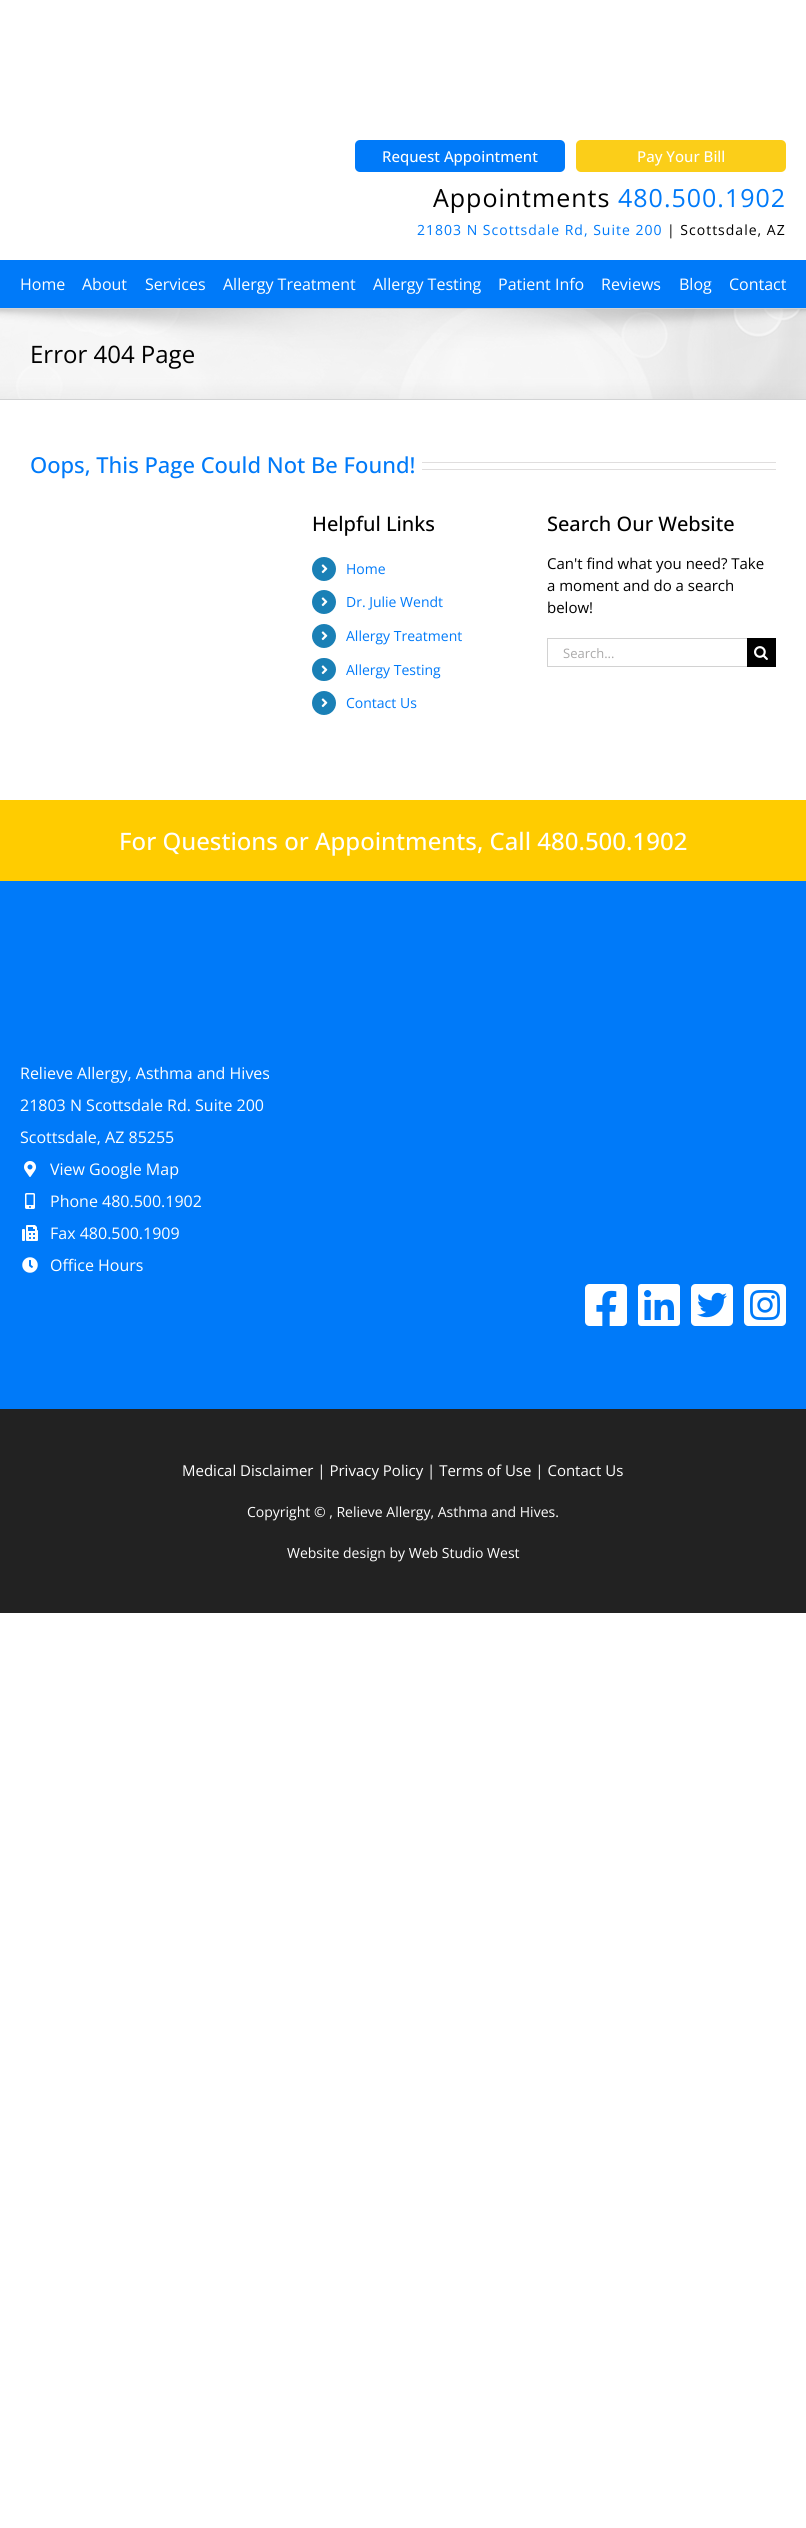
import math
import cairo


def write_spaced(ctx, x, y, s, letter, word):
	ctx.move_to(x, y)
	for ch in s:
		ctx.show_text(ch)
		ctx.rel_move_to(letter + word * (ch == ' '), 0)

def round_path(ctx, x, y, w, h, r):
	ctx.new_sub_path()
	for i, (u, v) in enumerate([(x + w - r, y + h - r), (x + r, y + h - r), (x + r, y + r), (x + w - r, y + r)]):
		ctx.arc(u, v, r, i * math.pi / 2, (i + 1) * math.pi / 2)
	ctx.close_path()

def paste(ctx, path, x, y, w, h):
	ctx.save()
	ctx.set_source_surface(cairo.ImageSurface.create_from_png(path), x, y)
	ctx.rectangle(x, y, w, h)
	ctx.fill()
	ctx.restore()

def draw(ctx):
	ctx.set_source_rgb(1, 1, 1)
	ctx.paint()
	ctx.set_source_rgb(0, 0.478, 0.976)
	round_path(ctx, 355, 140, 210, 32, 5)
	ctx.fill()
	ctx.select_font_face('Open Sans Medium')
	ctx.set_font_size(15)
	ctx.set_source_rgb(1, 1, 1)
	ctx.move_to(382, 162)
	ctx.show_text('Request Appointment')
	ctx.set_source_rgb(0.984, 0.808, 0.098)
	round_path(ctx, 576, 140, 210, 32, 5)
	ctx.fill()
	ctx.set_source_rgb(1, 1, 1)
	ctx.move_to(637, 162)
	ctx.show_text('Pay Your Bill')
	ctx.select_font_face('Open Sans')
	ctx.set_font_size(25)
	ctx.set_source_rgb(0, 0, 0)
	write_spaced(ctx, 433, 207, 'Appointments', 1, 0)
	ctx.set_source_rgb(0, 0.478, 0.976)
	write_spaced(ctx, 618, 207, '480.500.1902', 1, 0)
	ctx.set_font_size(14)
	write_spaced(ctx, 417, 235, '21803 N Scottsdale Rd, Suite 200', 1, 0)
	ctx.set_source_rgb(0, 0, 0)
	write_spaced(ctx, 667, 235, '| Scottsdale, AZ', 1, 0)
	ctx.set_source_rgb(0, 0.478, 0.976)
	ctx.rectangle(0, 260, 806, 48)
	ctx.fill()
	ctx.set_font_size(16)
	ctx.set_source_rgb(1, 1, 1)
	for x, y, s in [
		(20, 290, 'Home'),
		(82, 290, 'About'),
		(145, 290, 'Services'),
		(223, 290, 'Allergy Treatment'),
		(373, 290, 'Allergy Testing'),
		(498, 290, 'Patient Info'),
		(601, 290, 'Reviews'),
		(679, 290, 'Blog'),
		(729, 290, 'Contact'),
	]:
		ctx.move_to(x, y)
		ctx.show_text(s)
	ctx.set_source_rgb(0.965, 0.965, 0.965)
	ctx.rectangle(0, 309, 806, 90)
	ctx.fill()
	paste(ctx, 'media/1.png', 0, 309, 806, 90)
	ctx.set_source_rgb(0.824, 0.827, 0.831)
	ctx.rectangle(0, 308, 806, 1)
	ctx.fill()
	ctx.rectangle(0, 399, 806, 1)
	ctx.fill()
	ctx.set_font_size(24)
	ctx.set_source_rgb(0, 0, 0)
	ctx.move_to(30, 363)
	ctx.show_text('Error 404 Page')
	ctx.select_font_face('Open Sans Medium')
	ctx.set_font_size(22)
	ctx.set_source_rgb(0, 0.478, 0.976)
	ctx.move_to(30, 473)
	ctx.show_text('Oops, This Page Could Not Be Found!')
	ctx.set_source_rgb(0.878, 0.871, 0.871)
	ctx.rectangle(422, 462, 354, 1)
	ctx.fill()
	ctx.rectangle(422, 469, 354, 1)
	ctx.fill()
	ctx.set_font_size(20)
	ctx.set_source_rgb(0, 0, 0)
	ctx.move_to(312, 531)
	ctx.show_text('Helpful Links')
	ctx.set_source_rgb(0.102, 0.502, 0.714)
	ctx.new_path()
	ctx.arc(324, 569, 12, 0, 2 * math.pi)
	ctx.fill()
	paste(ctx, 'media/2.png', 321, 564, 7, 10)
	ctx.select_font_face('Open Sans')
	ctx.set_font_size(14)
	ctx.set_source_rgb(0, 0.478, 0.976)
	ctx.move_to(346, 574)
	ctx.show_text('Home')
	ctx.set_source_rgb(0.102, 0.502, 0.714)
	ctx.new_path()
	ctx.arc(324, 602, 12, 0, 2 * math.pi)
	ctx.fill()
	paste(ctx, 'media/2.png', 321, 597, 7, 10)
	ctx.set_source_rgb(0, 0.478, 0.976)
	ctx.move_to(346, 607)
	ctx.show_text('Dr. Julie Wendt')
	ctx.set_source_rgb(0.102, 0.502, 0.714)
	ctx.new_path()
	ctx.arc(324, 636, 12, 0, 2 * math.pi)
	ctx.fill()
	paste(ctx, 'media/2.png', 321, 631, 7, 10)
	ctx.set_source_rgb(0, 0.478, 0.976)
	ctx.move_to(346, 641)
	ctx.show_text('Allergy Treatment')
	ctx.set_source_rgb(0.102, 0.502, 0.714)
	round_path(ctx, 312, 658, 24, 23, 11.5)
	ctx.fill()
	paste(ctx, 'media/2.png', 321, 665, 7, 10)
	ctx.set_source_rgb(0, 0.478, 0.976)
	ctx.move_to(346, 675)
	ctx.show_text('Allergy Testing')
	ctx.set_source_rgb(0.102, 0.502, 0.714)
	ctx.new_path()
	ctx.arc(324, 703, 12, 0, 2 * math.pi)
	ctx.fill()
	paste(ctx, 'media/2.png', 321, 698, 7, 10)
	ctx.set_source_rgb(0, 0.478, 0.976)
	ctx.move_to(346, 708)
	ctx.show_text('Contact Us')
	ctx.select_font_face('Open Sans Medium')
	ctx.set_font_size(20)
	ctx.set_source_rgb(0, 0, 0)
	ctx.move_to(547, 531)
	ctx.show_text('Search Our Website')
	ctx.select_font_face('Open Sans')
	ctx.set_font_size(15)
	for x, y, s in [
		(547, 569, 'Can\'t find what you need? Take'),
		(547, 591, 'a moment and do a search'),
		(547, 613, 'below!'),
	]:
		ctx.move_to(x, y)
		ctx.show_text(s)
	ctx.set_source_rgb(0.824, 0.824, 0.824)
	ctx.rectangle(547, 638, 200, 1)
	ctx.rectangle(547, 666, 200, 1)
	ctx.rectangle(547, 638, 1, 29)
	ctx.fill()
	ctx.set_font_size(13)
	ctx.set_source_rgb(0.667, 0.663, 0.663)
	ctx.move_to(563, 658)
	ctx.show_text('Search...')
	ctx.set_source_rgb(0, 0, 0)
	ctx.rectangle(747, 638, 29, 29)
	ctx.fill()
	paste(ctx, 'media/3.png', 754, 646, 14, 14)
	ctx.set_source_rgb(1, 0.8, 0)
	ctx.rectangle(0, 800, 806, 81)
	ctx.fill()
	ctx.select_font_face('Open Sans Medium')
	ctx.set_font_size(24)
	ctx.set_source_rgb(1, 1, 1)
	ctx.move_to(119, 850)
	ctx.show_text('For Questions or Appointments, Call 480.500.1902')
	ctx.set_source_rgb(0, 0.478, 0.976)
	ctx.rectangle(0, 881, 806, 528)
	ctx.fill()
	ctx.select_font_face('Open Sans')
	ctx.set_font_size(16)
	ctx.set_source_rgb(1, 1, 1)
	for x, y, s in [
		(20, 1079, 'Relieve Allergy, Asthma and Hives'),
		(20, 1111, '21803 N Scottsdale Rd. Suite 200'),
		(20, 1143, 'Scottsdale, AZ 85255'),
	]:
		ctx.move_to(x, y)
		ctx.show_text(s)
	paste(ctx, 'media/4.png', 24, 1161, 12, 16)
	ctx.move_to(50, 1175)
	ctx.show_text('View Google Map')
	paste(ctx, 'media/5.png', 25, 1193, 10, 16)
	ctx.move_to(50, 1207)
	ctx.show_text('Phone 480.500.1902')
	paste(ctx, 'media/6.png', 22, 1225, 16, 16)
	ctx.move_to(50, 1239)
	ctx.show_text('Fax 480.500.1909')
	paste(ctx, 'media/7.png', 22, 1257, 16, 16)
	ctx.move_to(50, 1271)
	ctx.show_text('Office Hours')
	paste(ctx, 'media/8.png', 585, 1284, 42, 42)
	paste(ctx, 'media/9.png', 638, 1284, 42, 42)
	paste(ctx, 'media/10.png', 691, 1284, 42, 42)
	paste(ctx, 'media/11.png', 744, 1284, 42, 42)
	ctx.set_source_rgb(0.133, 0.133, 0.133)
	ctx.rectangle(0, 1409, 806, 204)
	ctx.fill()
	ctx.set_font_size(15)
	ctx.set_source_rgb(1, 1, 1)
	ctx.move_to(182, 1476)
	ctx.show_text('Medical Disclaimer | Privacy Policy | Terms of Use | Contact Us')
	ctx.set_font_size(14)
	ctx.move_to(247, 1517)
	ctx.show_text('Copyright © , Relieve Allergy, Asthma and Hives.')
	ctx.move_to(287, 1558)
	ctx.show_text('Website design by Web Studio West')


surface = cairo.ImageSurface(cairo.FORMAT_RGB24, 806, 2528)
ctx = cairo.Context(surface)
options = cairo.FontOptions()
options.set_hint_metrics(cairo.HINT_METRICS_OFF)
options.set_hint_style(cairo.HINT_STYLE_NONE)
ctx.set_font_options(options)
ctx.set_miter_limit(4)
draw(ctx)
surface.write_to_png('image.png')
